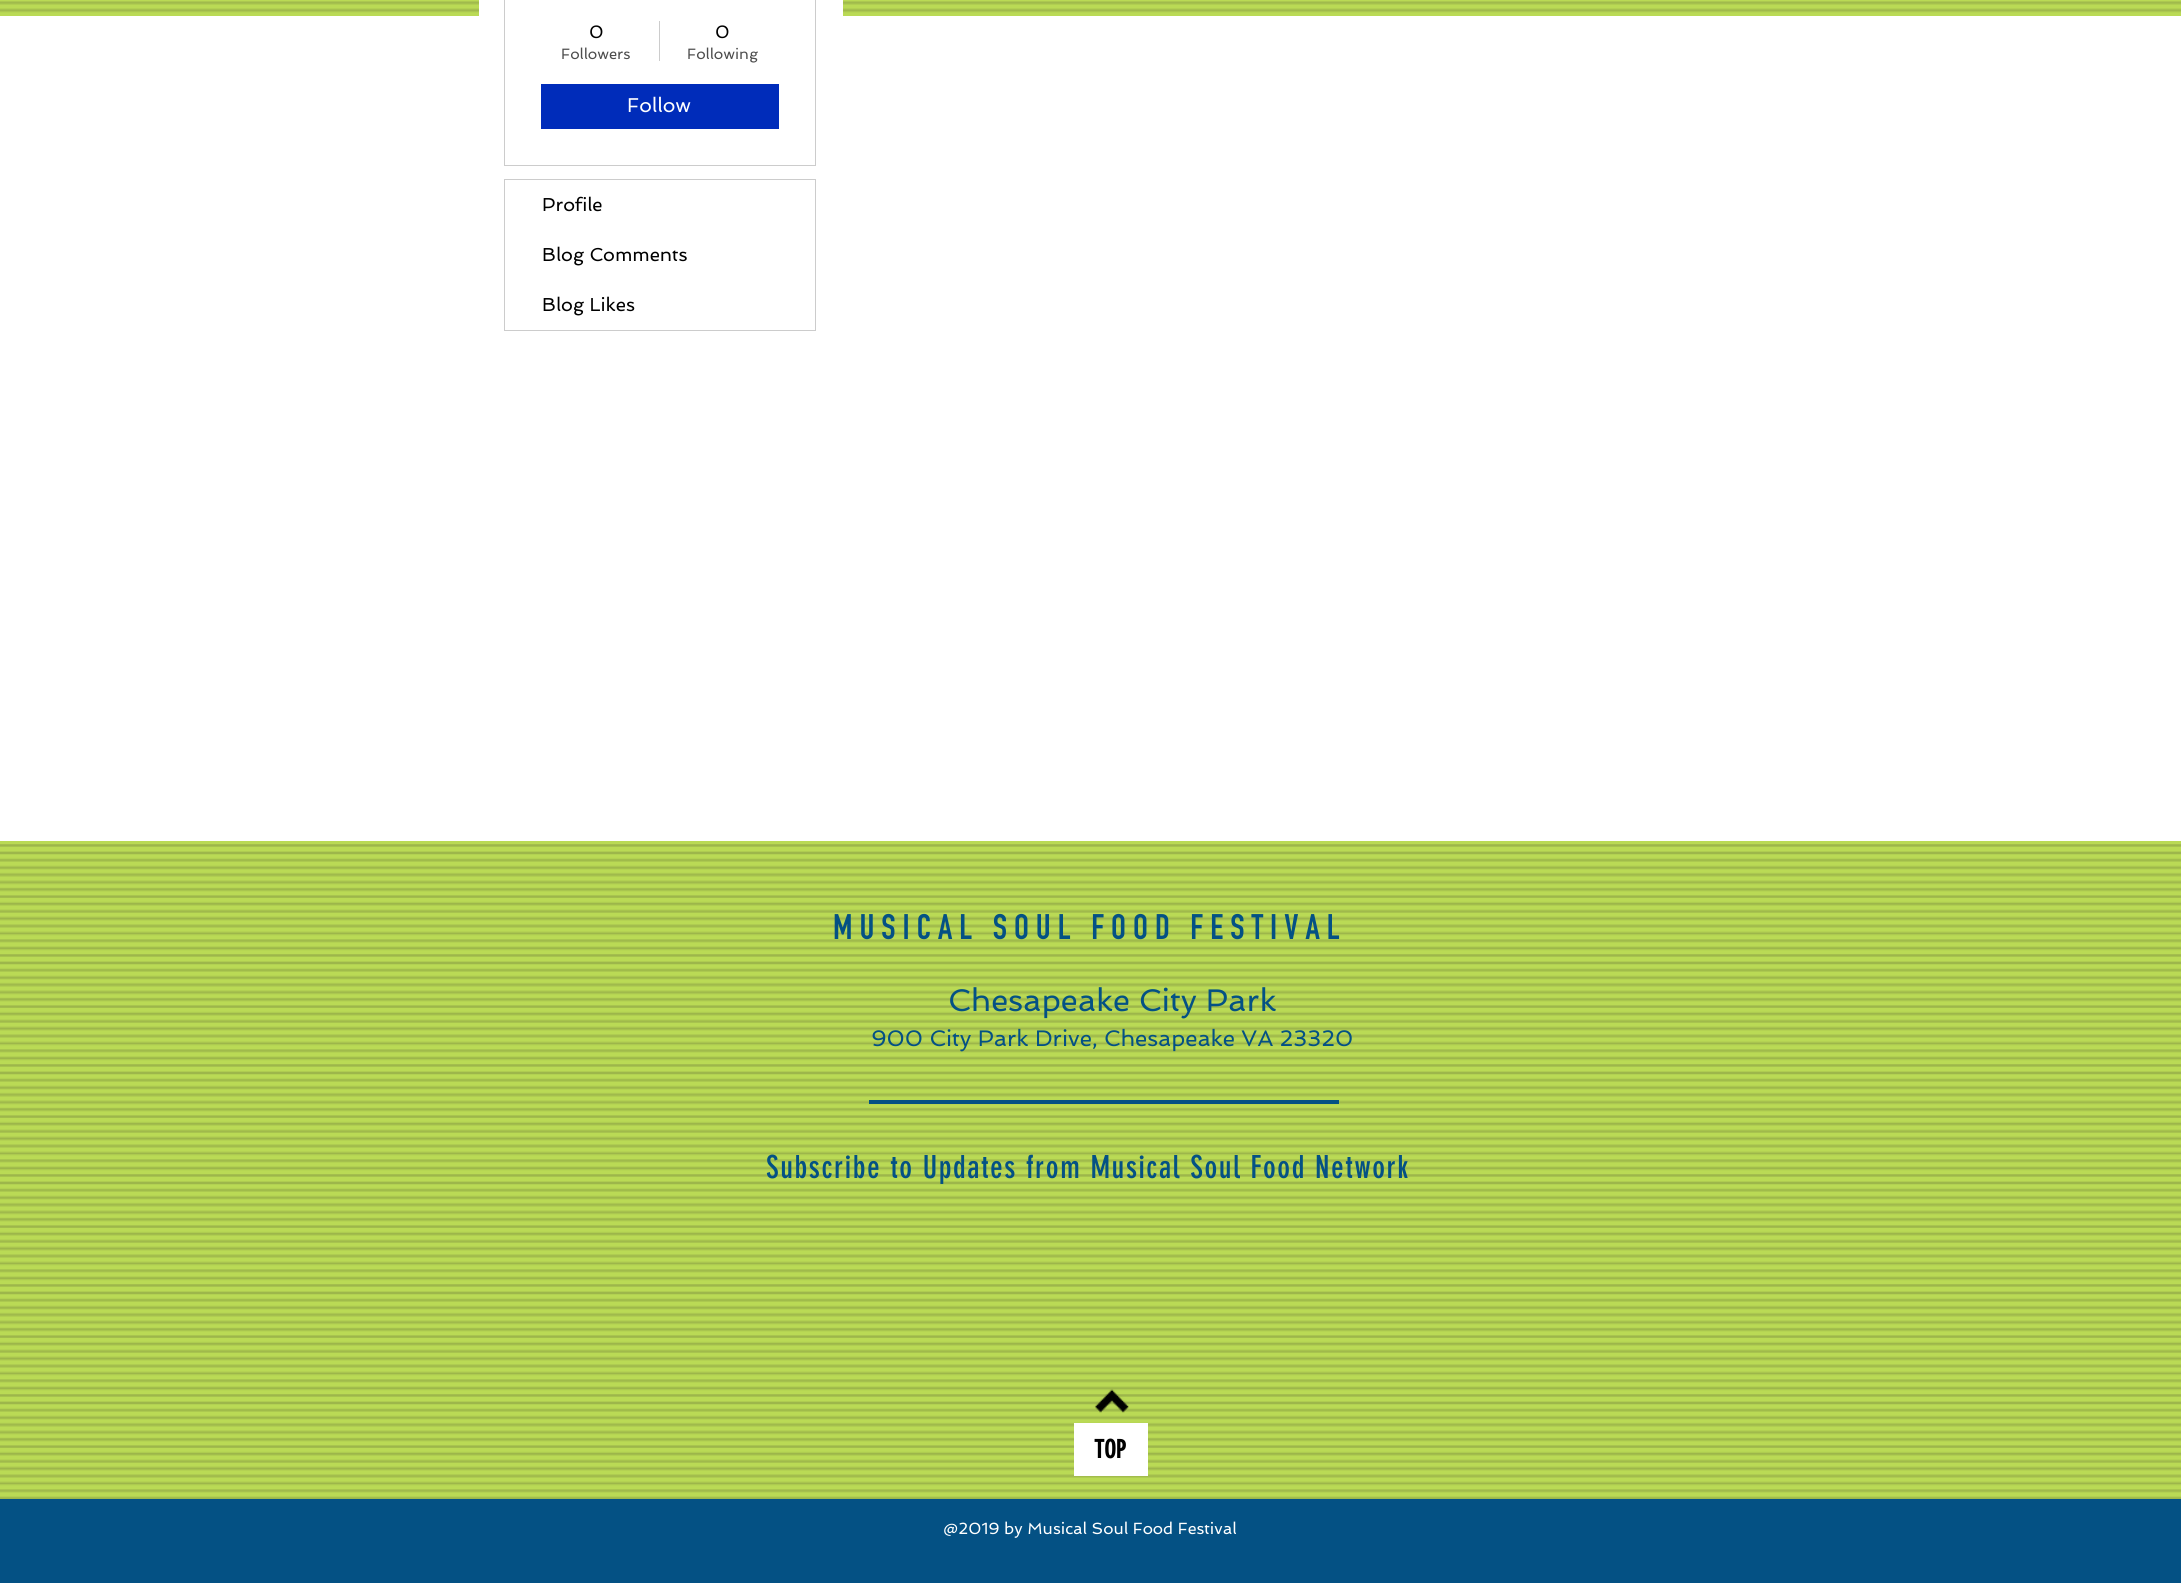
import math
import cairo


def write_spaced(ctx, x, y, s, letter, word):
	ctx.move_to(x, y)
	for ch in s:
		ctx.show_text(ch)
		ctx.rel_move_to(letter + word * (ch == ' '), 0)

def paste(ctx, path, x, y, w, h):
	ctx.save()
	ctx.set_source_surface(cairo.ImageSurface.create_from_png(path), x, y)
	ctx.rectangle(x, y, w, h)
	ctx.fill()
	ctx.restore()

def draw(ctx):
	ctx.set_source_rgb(1, 1, 1)
	ctx.paint()
	ctx.set_source_rgb(0.729, 0.855, 0.333)
	ctx.rectangle(0, 0, 2181, 16)
	ctx.fill()
	paste(ctx, 'media/1.png', 0, 1, 2181, 12)
	ctx.set_source_rgb(1, 1, 1)
	ctx.rectangle(479, 0, 364, 16)
	ctx.fill()
	ctx.rectangle(504.5, -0.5, 311, 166)
	ctx.set_source_rgb(0.8, 0.8, 0.8)
	ctx.set_line_width(1)
	ctx.stroke()
	ctx.select_font_face('Spinnaker')
	ctx.set_font_size(18)
	ctx.set_source_rgb(0, 0, 0)
	ctx.move_to(589, 38)
	ctx.show_text('0')
	ctx.set_font_size(15)
	ctx.set_source_rgb(0.302, 0.302, 0.302)
	ctx.move_to(561, 59)
	ctx.show_text('Followers')
	ctx.set_source_rgb(0.8, 0.8, 0.8)
	ctx.rectangle(659, 21, 1, 40)
	ctx.fill()
	ctx.set_font_size(18)
	ctx.set_source_rgb(0, 0, 0)
	ctx.move_to(715, 38)
	ctx.show_text('0')
	ctx.set_font_size(15)
	ctx.set_source_rgb(0.302, 0.302, 0.302)
	ctx.move_to(687, 59)
	ctx.show_text('Following')
	ctx.set_source_rgb(0, 0.173, 0.729)
	ctx.rectangle(541, 84, 238, 45)
	ctx.fill()
	ctx.set_font_size(20)
	ctx.set_source_rgb(1, 1, 1)
	ctx.move_to(627, 112)
	ctx.show_text('Follow')
	ctx.rectangle(504.5, 179.5, 311, 151)
	ctx.set_source_rgb(0.8, 0.8, 0.8)
	ctx.stroke()
	ctx.set_font_size(18.75)
	ctx.set_source_rgb(0, 0, 0)
	for x, y, s in [
		(542, 211, 'Profile'),
		(542, 261, 'Blog Comments'),
		(542, 311, 'Blog Likes'),
	]:
		ctx.move_to(x, y)
		ctx.show_text(s)
	ctx.set_source_rgb(0.729, 0.855, 0.333)
	ctx.rectangle(0, 841, 2181, 658)
	ctx.fill()
	paste(ctx, 'media/2.png', 0, 844, 2181, 655)
	ctx.select_font_face('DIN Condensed', cairo.FONT_SLANT_NORMAL, cairo.FONT_WEIGHT_BOLD)
	ctx.set_font_size(35)
	ctx.set_source_rgb(0.016, 0.318, 0.518)
	write_spaced(ctx, 833, 939, 'MUSICAL SOUL FOOD FESTIVAL', 7, 0)
	ctx.select_font_face('Spinnaker')
	ctx.set_font_size(31.25)
	ctx.move_to(948, 1011)
	ctx.show_text('Chesapeake City Park')
	ctx.set_font_size(22.5)
	ctx.move_to(871, 1046)
	ctx.show_text('900 City Park Drive, Chesapeake VA 23320')
	ctx.rectangle(869, 1100, 470, 4)
	ctx.fill()
	ctx.select_font_face('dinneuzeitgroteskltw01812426')
	ctx.set_font_size(31.25)
	write_spaced(ctx, 766, 1178, 'Subscribe to Updates from Musical Soul Food Network', 1.55, 0)
	paste(ctx, 'media/3.png', 1094, 1389, 35, 24)
	ctx.set_source_rgb(1, 1, 1)
	ctx.rectangle(1074, 1423, 74, 53)
	ctx.fill()
	ctx.select_font_face('dinneuzeitgroteskltw01812426', cairo.FONT_SLANT_NORMAL, cairo.FONT_WEIGHT_BOLD)
	ctx.set_font_size(25)
	ctx.set_source_rgb(0, 0, 0)
	ctx.move_to(1094, 1458)
	ctx.show_text('TOP')
	ctx.set_source_rgb(0.016, 0.318, 0.518)
	ctx.rectangle(0, 1499, 2181, 84)
	ctx.fill()
	ctx.select_font_face('Spinnaker')
	ctx.set_font_size(16.25)
	ctx.set_source_rgb(1, 1, 1)
	ctx.move_to(943, 1534)
	ctx.show_text('@2019 by Musical Soul Food Festival')


surface = cairo.ImageSurface(cairo.FORMAT_RGB24, 2181, 1583)
ctx = cairo.Context(surface)
options = cairo.FontOptions()
options.set_hint_metrics(cairo.HINT_METRICS_OFF)
options.set_hint_style(cairo.HINT_STYLE_NONE)
ctx.set_font_options(options)
ctx.set_miter_limit(4)
draw(ctx)
surface.write_to_png('image.png')
